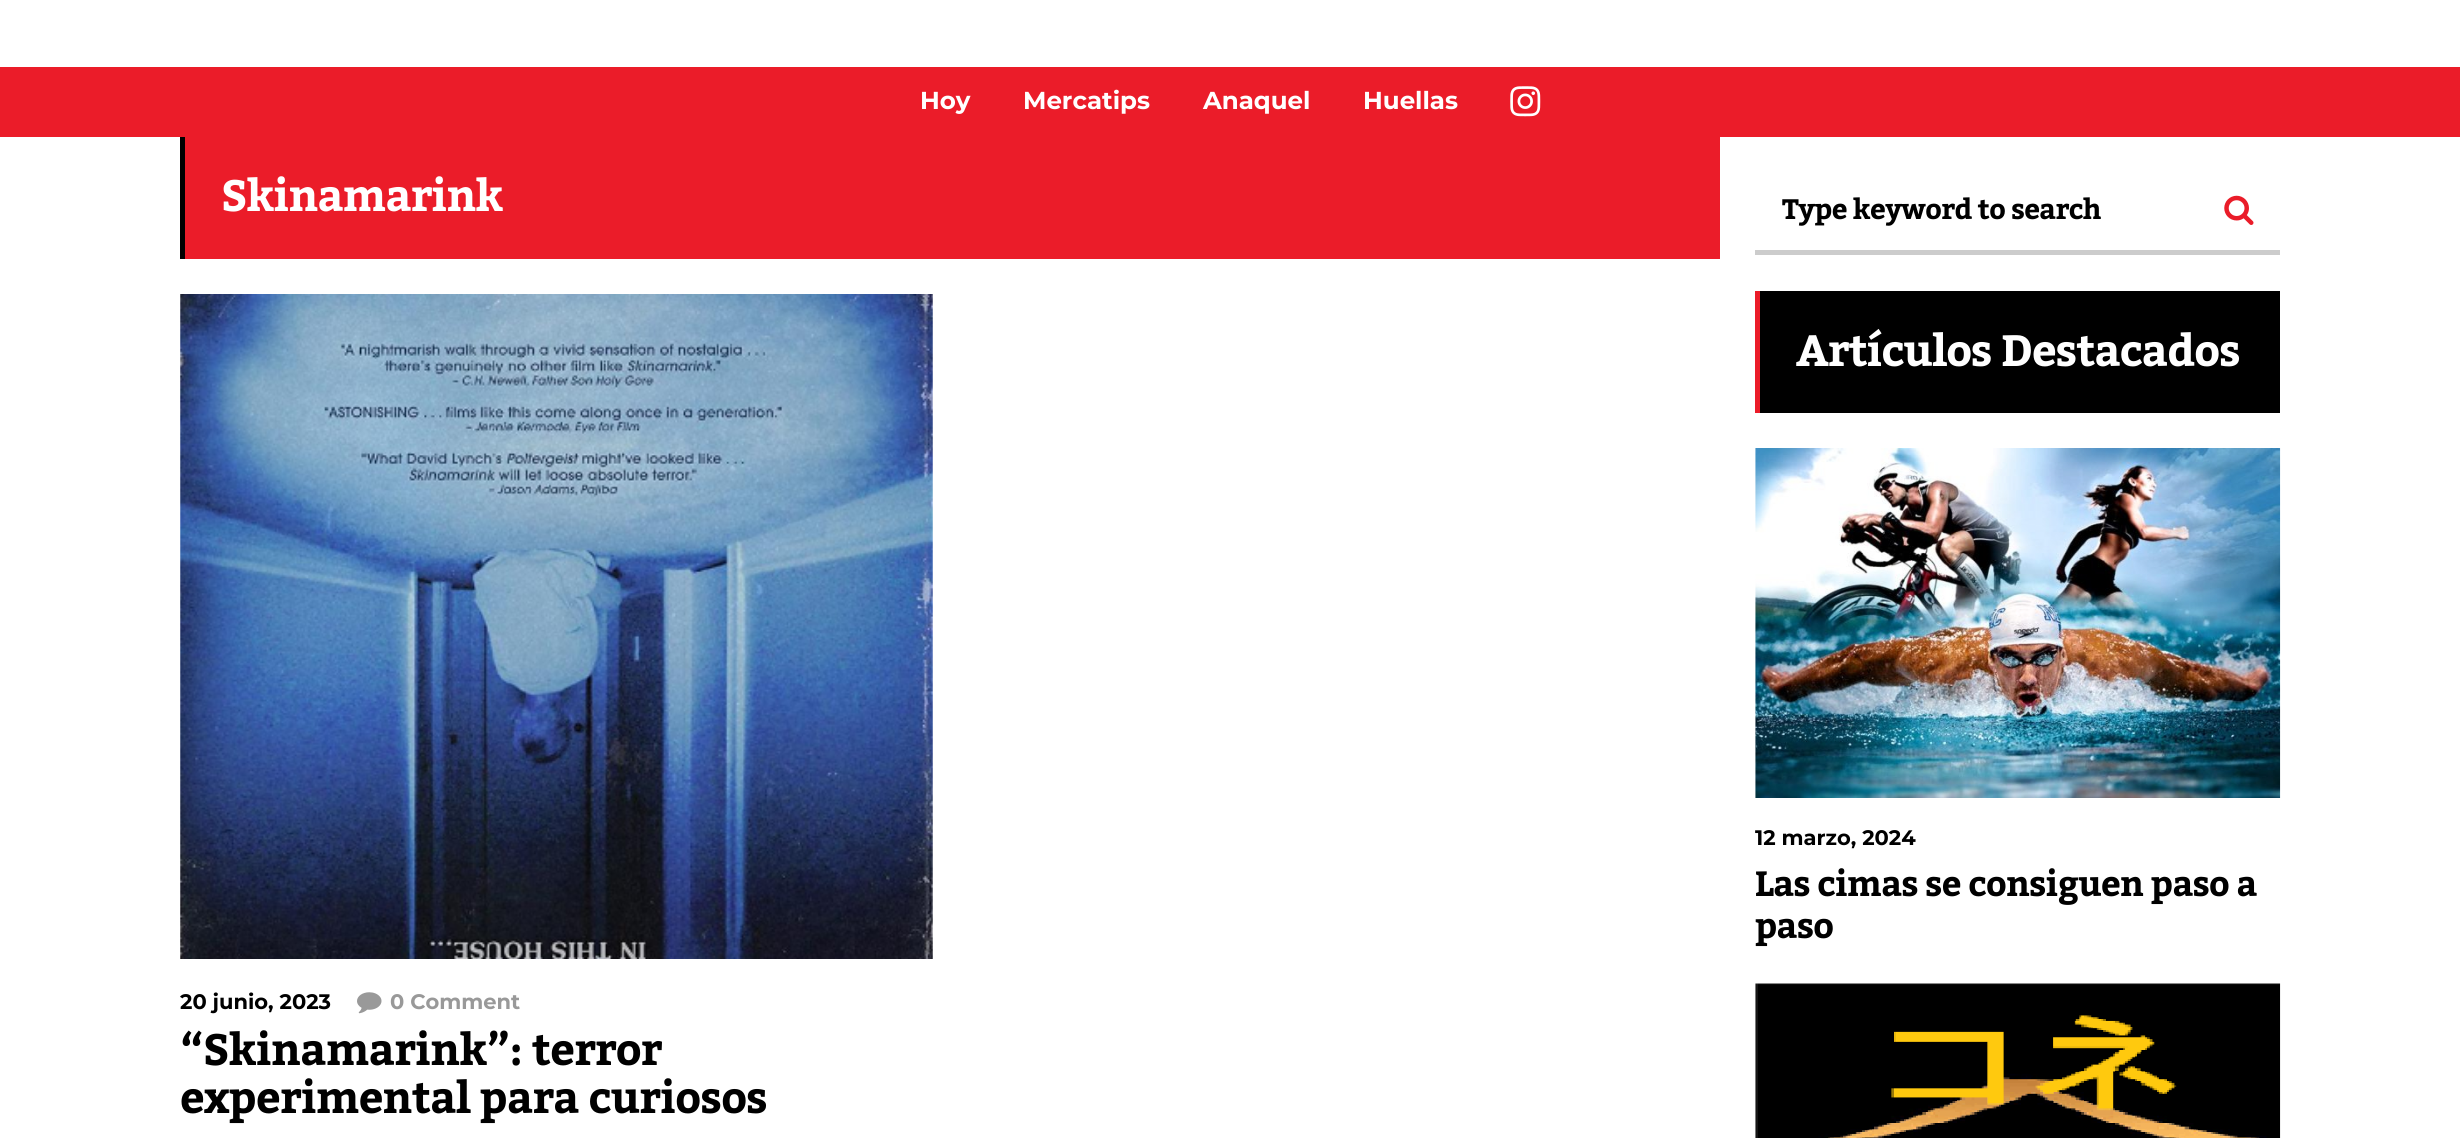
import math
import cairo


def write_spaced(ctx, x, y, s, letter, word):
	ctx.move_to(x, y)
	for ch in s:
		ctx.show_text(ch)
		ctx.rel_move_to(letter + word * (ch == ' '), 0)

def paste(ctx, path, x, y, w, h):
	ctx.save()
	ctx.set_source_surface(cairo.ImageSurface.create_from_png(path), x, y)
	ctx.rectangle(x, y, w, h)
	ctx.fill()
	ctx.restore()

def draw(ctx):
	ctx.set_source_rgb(1, 1, 1)
	ctx.paint()
	ctx.set_source_rgb(0.918, 0.11, 0.161)
	ctx.rectangle(0, 67, 2460, 70)
	ctx.fill()
	ctx.select_font_face('Montserrat', cairo.FONT_SLANT_NORMAL, cairo.FONT_WEIGHT_BOLD)
	ctx.set_font_size(24.5)
	ctx.set_source_rgb(1, 1, 1)
	for x, y, s in [
		(920, 109, 'Hoy'),
		(1023, 109, 'Mercatips'),
		(1203, 109, 'Anaquel'),
		(1363, 109, 'Huellas'),
	]:
		ctx.move_to(x, y)
		ctx.show_text(s)
	paste(ctx, 'media/1.png', 1510, 86, 31, 31)
	ctx.set_source_rgb(0.918, 0.11, 0.161)
	ctx.rectangle(185, 137, 1535, 122)
	ctx.fill()
	ctx.set_source_rgb(0, 0, 0)
	ctx.rectangle(180, 137, 5, 122)
	ctx.fill()
	ctx.select_font_face('Kadwa', cairo.FONT_SLANT_NORMAL, cairo.FONT_WEIGHT_BOLD)
	ctx.set_font_size(43.75)
	ctx.set_source_rgb(1, 1, 1)
	write_spaced(ctx, 221, 211, 'Skinamarink', -0.9, 0)
	paste(ctx, 'media/2.png', 180, 294, 753, 665)
	ctx.select_font_face('Montserrat', cairo.FONT_SLANT_NORMAL, cairo.FONT_WEIGHT_BOLD)
	ctx.set_font_size(21)
	ctx.set_source_rgb(0, 0, 0)
	ctx.move_to(180, 1009)
	ctx.show_text('20 junio, 2023')
	paste(ctx, 'media/3.png', 357, 992, 25, 22)
	ctx.set_source_rgb(0.6, 0.6, 0.6)
	ctx.move_to(390, 1009)
	ctx.show_text('0 Comment')
	ctx.select_font_face('Kadwa', cairo.FONT_SLANT_NORMAL, cairo.FONT_WEIGHT_BOLD)
	ctx.set_font_size(43.75)
	ctx.set_source_rgb(0, 0, 0)
	write_spaced(ctx, 180, 1065, '“Skinamarink”: terror', -0.7, 0)
	write_spaced(ctx, 180, 1113, 'experimental para curiosos', -0.7, 0)
	ctx.set_source_rgb(0.8, 0.8, 0.8)
	ctx.rectangle(1755, 250, 525, 5)
	ctx.fill()
	ctx.save()
	ctx.rectangle(1782, 182, 404, 56)
	ctx.clip()
	ctx.set_font_size(28)
	ctx.set_source_rgb(0, 0, 0)
	write_spaced(ctx, 1782, 219, 'Type keyword to search', -0.6, 0)
	ctx.restore()
	paste(ctx, 'media/4.png', 2224, 195, 30, 30)
	ctx.set_source_rgb(0, 0, 0)
	ctx.rectangle(1760, 291, 520, 122)
	ctx.fill()
	ctx.set_source_rgb(0.918, 0.11, 0.161)
	ctx.rectangle(1755, 291, 5, 122)
	ctx.fill()
	ctx.set_source_rgb(1, 1, 1)
	write_spaced(ctx, 1796, 366, 'Artículos Destacados', -0.9, 0)
	paste(ctx, 'media/5.png', 1755, 448, 526, 350)
	ctx.select_font_face('Montserrat', cairo.FONT_SLANT_NORMAL, cairo.FONT_WEIGHT_BOLD)
	ctx.set_font_size(21)
	ctx.set_source_rgb(0, 0, 0)
	ctx.move_to(1755, 845)
	ctx.show_text('12 marzo, 2024')
	ctx.select_font_face('Kadwa', cairo.FONT_SLANT_NORMAL, cairo.FONT_WEIGHT_BOLD)
	ctx.set_font_size(35)
	write_spaced(ctx, 1755, 896, 'Las cimas se consiguen paso a', -0.7, 0)
	write_spaced(ctx, 1755, 938, 'paso', -0.7, 0)
	paste(ctx, 'media/6.png', 1755, 983, 526, 155)


surface = cairo.ImageSurface(cairo.FORMAT_RGB24, 2460, 1138)
ctx = cairo.Context(surface)
options = cairo.FontOptions()
options.set_hint_metrics(cairo.HINT_METRICS_OFF)
options.set_hint_style(cairo.HINT_STYLE_NONE)
ctx.set_font_options(options)
ctx.set_miter_limit(4)
draw(ctx)
surface.write_to_png('image.png')
